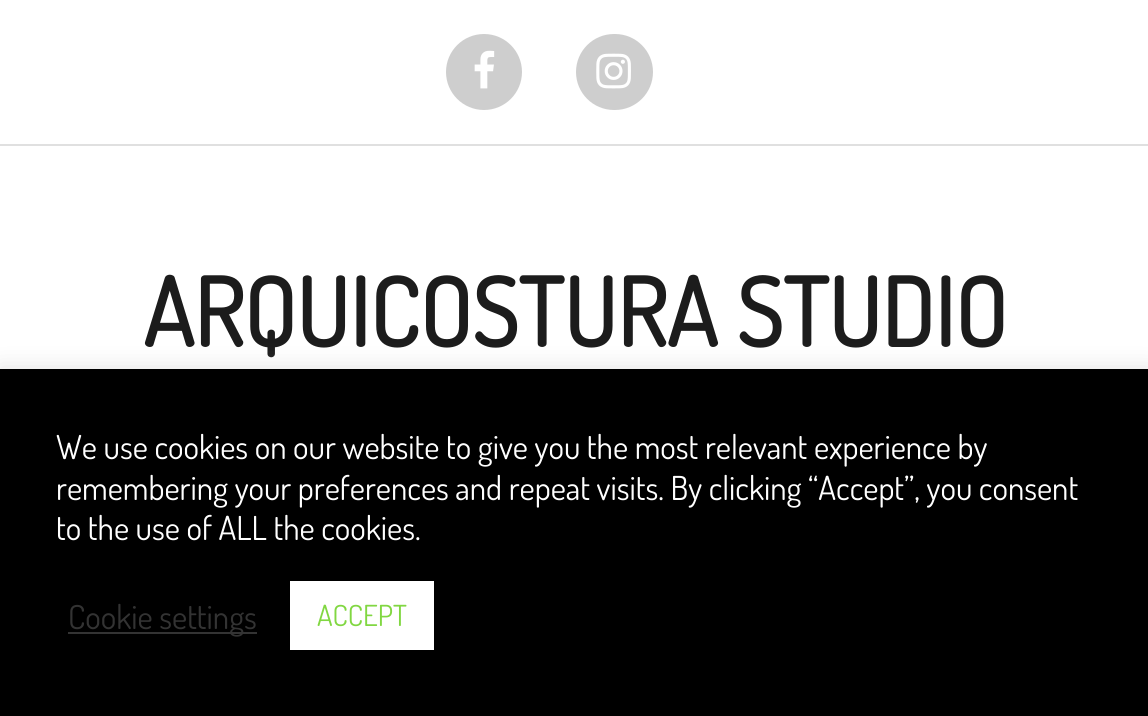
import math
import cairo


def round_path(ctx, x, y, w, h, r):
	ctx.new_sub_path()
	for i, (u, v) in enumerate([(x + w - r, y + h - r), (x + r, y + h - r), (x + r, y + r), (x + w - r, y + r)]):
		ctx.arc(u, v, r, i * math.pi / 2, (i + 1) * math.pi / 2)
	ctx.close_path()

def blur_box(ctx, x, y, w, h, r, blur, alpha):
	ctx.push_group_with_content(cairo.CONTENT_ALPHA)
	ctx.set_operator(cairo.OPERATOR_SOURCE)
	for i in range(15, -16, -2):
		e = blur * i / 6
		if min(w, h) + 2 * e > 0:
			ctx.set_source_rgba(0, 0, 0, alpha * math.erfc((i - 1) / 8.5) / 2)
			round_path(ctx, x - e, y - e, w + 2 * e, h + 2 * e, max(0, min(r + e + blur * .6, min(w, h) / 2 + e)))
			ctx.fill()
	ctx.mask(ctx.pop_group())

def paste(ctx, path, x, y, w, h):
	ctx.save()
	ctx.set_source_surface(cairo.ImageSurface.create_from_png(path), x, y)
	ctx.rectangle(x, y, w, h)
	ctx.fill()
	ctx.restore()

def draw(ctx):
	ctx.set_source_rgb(1, 1, 1)
	ctx.paint()
	ctx.set_source_rgb(0.878, 0.878, 0.878)
	ctx.rectangle(0, 144, 1148, 2)
	ctx.fill()
	ctx.set_source_rgb(0.808, 0.808, 0.808)
	ctx.arc(484, 72, 38, 0, 2 * math.pi)
	ctx.fill()
	paste(ctx, 'media/1.png', 474, 50, 21, 39)
	round_path(ctx, 576, 34, 77, 76, 38)
	ctx.fill()
	paste(ctx, 'media/2.png', 596, 53, 35, 36)
	ctx.select_font_face('Dosis', cairo.FONT_SLANT_NORMAL, cairo.FONT_WEIGHT_BOLD)
	ctx.set_font_size(94.5)
	ctx.set_source_rgb(0.11, 0.11, 0.11)
	ctx.move_to(143, 347)
	ctx.show_text('ARQUICOSTURA STUDIO')
	ctx.set_source_rgb(0.675, 0.671, 0.671)
	blur_box(ctx, 0, 367, 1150, 349, 0, 11, 0.3)
	ctx.set_source_rgb(0, 0, 0)
	ctx.rectangle(0, 369, 1148, 347)
	ctx.fill()
	ctx.select_font_face('Dosis')
	ctx.set_font_size(33)
	ctx.set_source_rgb(1, 1, 1)
	for x, y, s in [
		(56, 459, 'We use cookies on our website to give you the most relevant experience by'),
		(56, 500, 'remembering your preferences and repeat visits. By clicking “Accept”, you consent'),
		(56, 540, 'to the use of ALL the cookies.'),
	]:
		ctx.move_to(x, y)
		ctx.show_text(s)
	ctx.set_source_rgb(0.2, 0.2, 0.2)
	ctx.rectangle(68, 632, 189, 2)
	ctx.fill()
	ctx.move_to(68, 629)
	ctx.show_text('Cookie settings')
	ctx.set_source_rgb(1, 1, 1)
	ctx.rectangle(290, 581, 144, 69)
	ctx.fill()
	ctx.set_font_size(29)
	ctx.set_source_rgb(0.506, 0.843, 0.259)
	ctx.move_to(317, 626)
	ctx.show_text('ACCEPT')


surface = cairo.ImageSurface(cairo.FORMAT_RGB24, 1148, 716)
ctx = cairo.Context(surface)
options = cairo.FontOptions()
options.set_hint_metrics(cairo.HINT_METRICS_OFF)
options.set_hint_style(cairo.HINT_STYLE_NONE)
ctx.set_font_options(options)
ctx.set_miter_limit(4)
draw(ctx)
surface.write_to_png('image.png')
